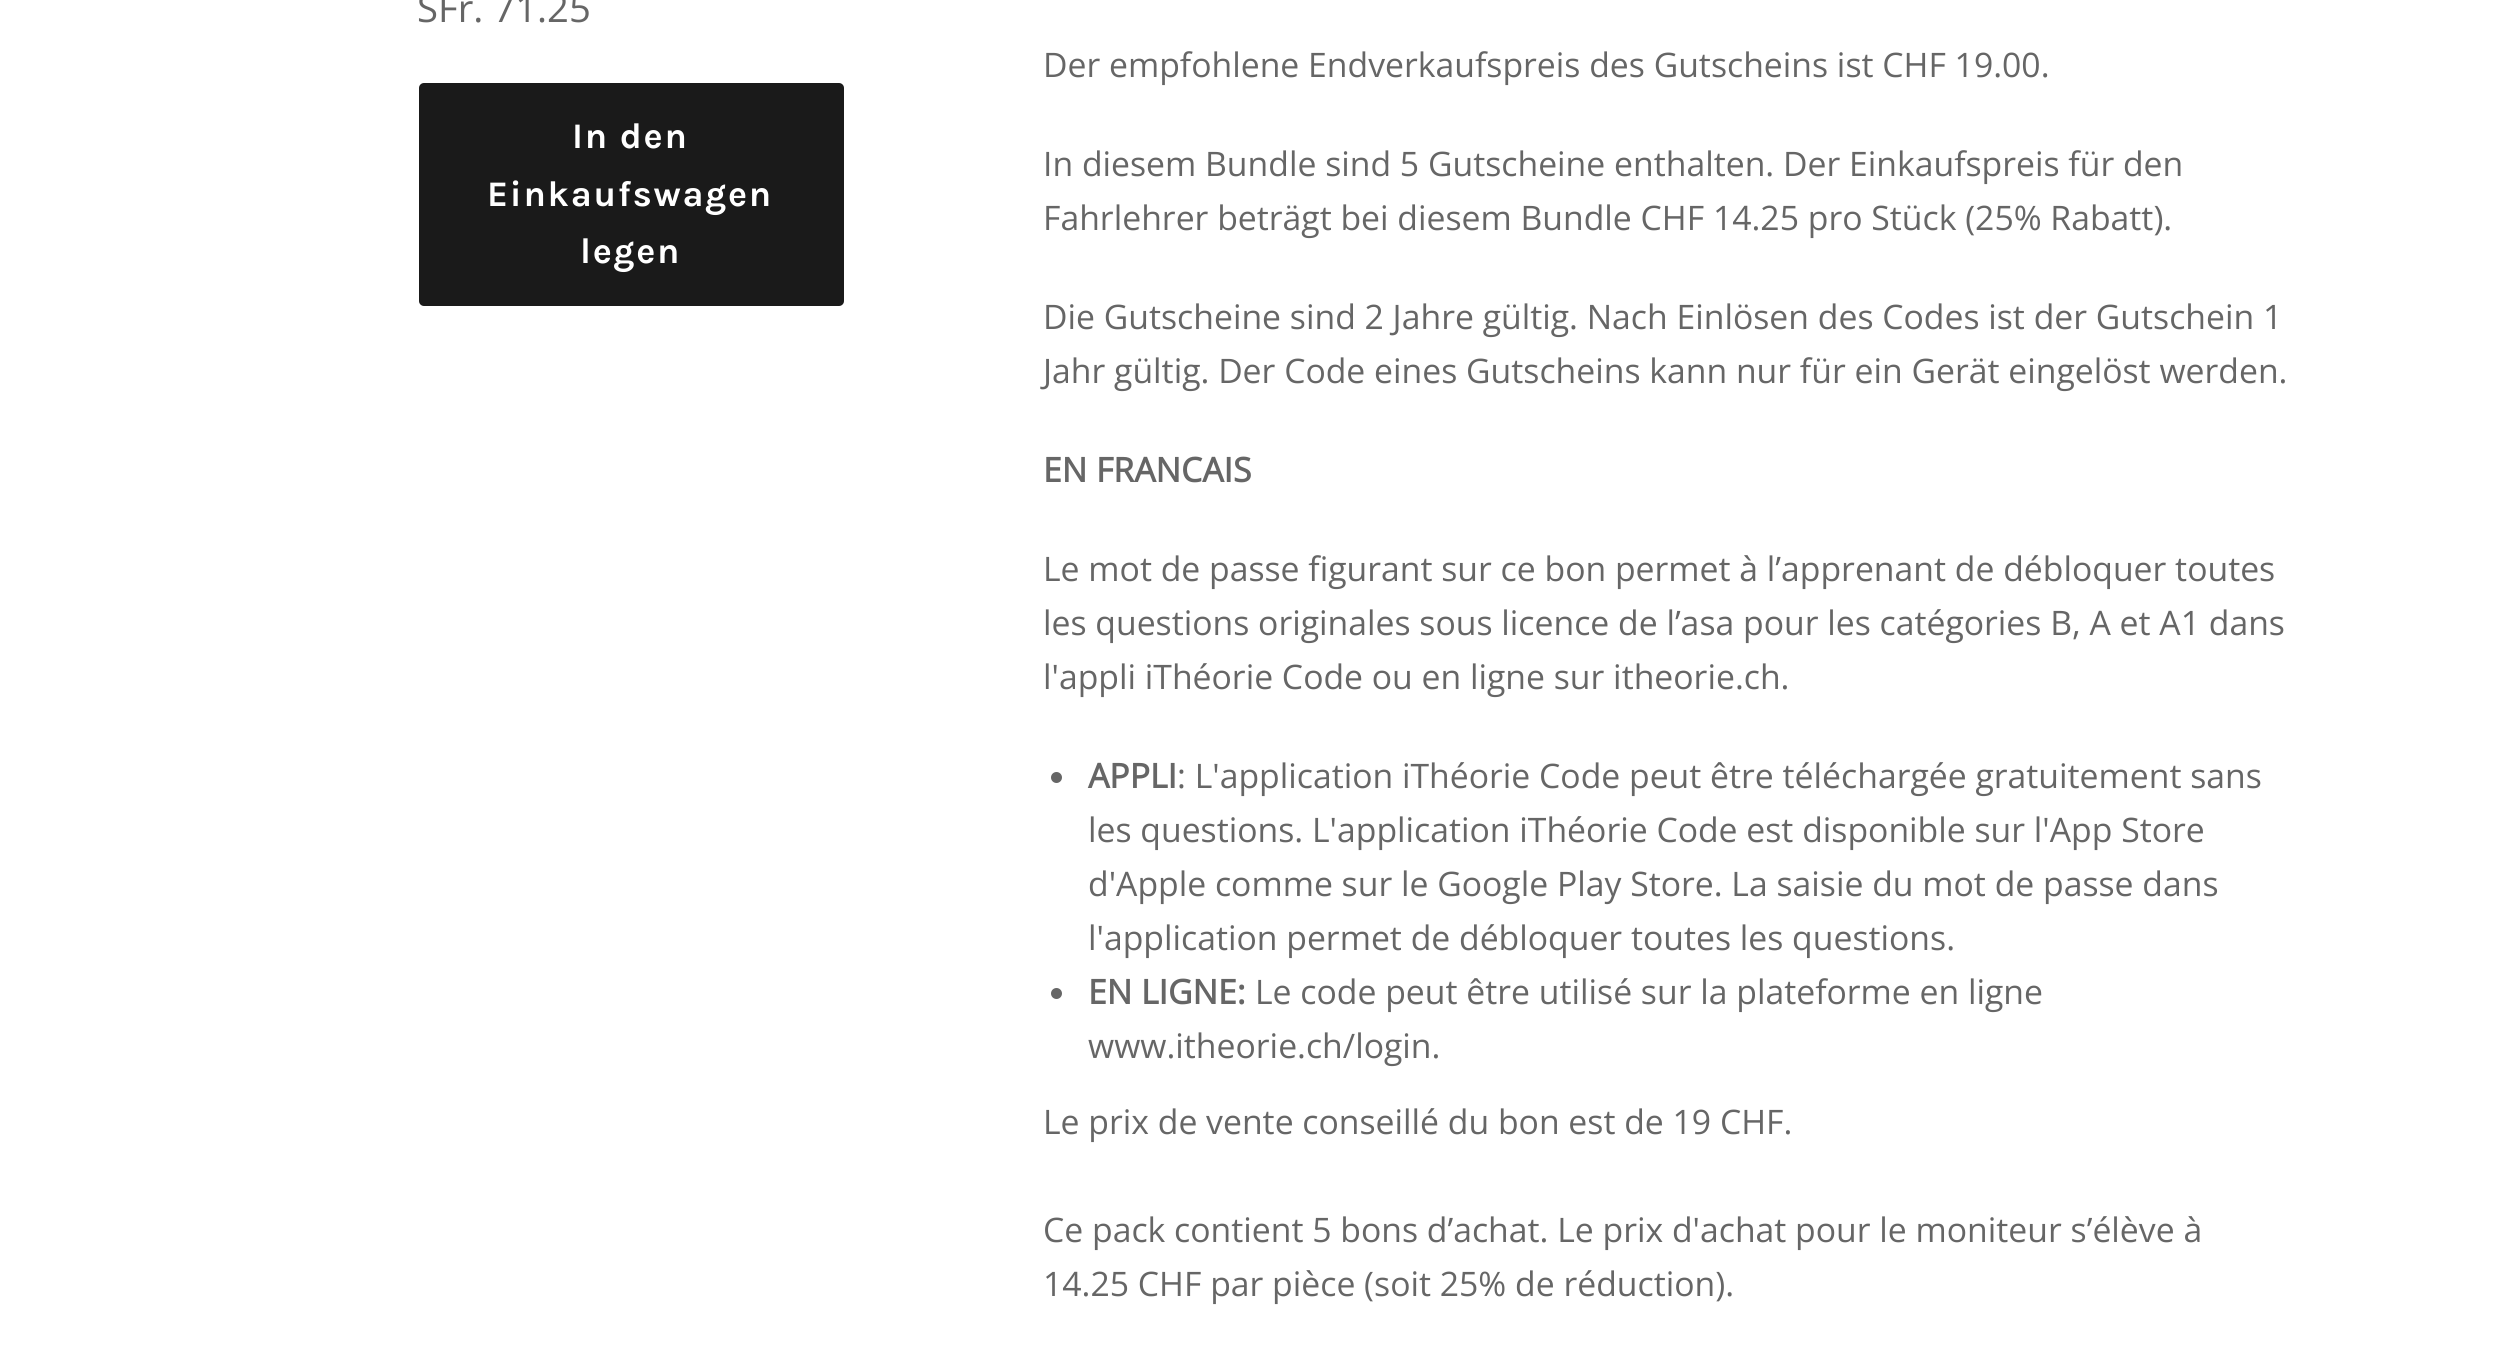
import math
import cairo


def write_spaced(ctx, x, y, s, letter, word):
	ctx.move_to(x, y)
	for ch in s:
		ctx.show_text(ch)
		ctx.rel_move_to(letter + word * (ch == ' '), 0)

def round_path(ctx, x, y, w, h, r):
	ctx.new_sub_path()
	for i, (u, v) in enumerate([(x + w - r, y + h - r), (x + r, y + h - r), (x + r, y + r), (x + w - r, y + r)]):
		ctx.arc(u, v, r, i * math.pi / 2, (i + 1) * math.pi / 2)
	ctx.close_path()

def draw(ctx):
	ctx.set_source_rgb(1, 1, 1)
	ctx.paint()
	ctx.select_font_face('Open Sans')
	ctx.set_font_size(38.25)
	ctx.set_source_rgb(0.4, 0.4, 0.4)
	ctx.move_to(417, 22)
	ctx.show_text('SFr. 71.25')
	ctx.set_source_rgb(0.102, 0.102, 0.102)
	round_path(ctx, 419, 83, 425, 223, 5)
	ctx.fill()
	ctx.select_font_face('Karla', cairo.FONT_SLANT_NORMAL, cairo.FONT_WEIGHT_BOLD)
	ctx.set_font_size(36)
	ctx.set_source_rgb(1, 1, 1)
	for x, y, s in [
		(572, 148, 'In den'),
		(487, 206, 'Einkaufswagen'),
		(580, 263, 'legen'),
	]:
		write_spaced(ctx, x, y, s, 1.75, 0)
	ctx.select_font_face('Open Sans')
	ctx.set_font_size(33.75)
	ctx.set_source_rgb(0.4, 0.4, 0.4)
	for x, y, s in [
		(1043, 77, 'Der empfohlene Endverkaufspreis des Gutscheins ist CHF 19.00.'),
		(1043, 176, 'In diesem Bundle sind 5 Gutscheine enthalten. Der Einkaufspreis für den'),
		(1043, 230, 'Fahrlehrer beträgt bei diesem Bundle CHF 14.25 pro Stück (25% Rabatt).'),
		(1043, 329, 'Die Gutscheine sind 2 Jahre gültig. Nach Einlösen des Codes ist der Gutschein 1'),
		(1043, 383, 'Jahr gültig. Der Code eines Gutscheins kann nur für ein Gerät eingelöst werden.'),
	]:
		ctx.move_to(x, y)
		ctx.show_text(s)
	ctx.select_font_face('Open Sans', cairo.FONT_SLANT_NORMAL, cairo.FONT_WEIGHT_BOLD)
	ctx.move_to(1043, 482)
	ctx.show_text('EN FRANCAIS')
	ctx.select_font_face('Open Sans')
	for x, y, s in [
		(1043, 581, 'Le mot de passe figurant sur ce bon permet à l’apprenant de débloquer toutes'),
		(1043, 635, 'les questions originales sous licence de l’asa pour les catégories B, A et A1 dans'),
		(1043, 689, 'l\'appli iThéorie Code ou en ligne sur itheorie.ch.'),
	]:
		ctx.move_to(x, y)
		ctx.show_text(s)
	ctx.new_path()
	ctx.arc(1056.5, 777.5, 5.5, 0, 2 * math.pi)
	ctx.fill()
	ctx.select_font_face('Open Sans', cairo.FONT_SLANT_NORMAL, cairo.FONT_WEIGHT_BOLD)
	ctx.move_to(1088, 788)
	ctx.show_text('APPLI')
	ctx.select_font_face('Open Sans')
	for x, y, s in [
		(1177, 788, ': L\'application iThéorie Code peut être téléchargée gratuitement sans'),
		(1088, 842, 'les questions. L\'application iThéorie Code est disponible sur l\'App Store'),
		(1088, 896, 'd\'Apple comme sur le Google Play Store. La saisie du mot de passe dans'),
		(1088, 950, 'l\'application permet de débloquer toutes les questions.'),
	]:
		ctx.move_to(x, y)
		ctx.show_text(s)
	ctx.new_path()
	ctx.arc(1056.5, 993.5, 5.5, 0, 2 * math.pi)
	ctx.fill()
	ctx.select_font_face('Open Sans', cairo.FONT_SLANT_NORMAL, cairo.FONT_WEIGHT_BOLD)
	ctx.move_to(1088, 1004)
	ctx.show_text('EN LIGNE:')
	ctx.select_font_face('Open Sans')
	for x, y, s in [
		(1255, 1004, 'Le code peut être utilisé sur la plateforme en ligne'),
		(1088, 1058, 'www.itheorie.ch/login.'),
		(1043, 1134, 'Le prix de vente conseillé du bon est de 19 CHF.'),
		(1043, 1242, 'Ce pack contient 5 bons d’achat. Le prix d\'achat pour le moniteur s’élève à'),
		(1043, 1296, '14.25 CHF par pièce (soit 25% de réduction).'),
	]:
		ctx.move_to(x, y)
		ctx.show_text(s)


surface = cairo.ImageSurface(cairo.FORMAT_RGB24, 2503, 1346)
ctx = cairo.Context(surface)
options = cairo.FontOptions()
options.set_hint_metrics(cairo.HINT_METRICS_OFF)
options.set_hint_style(cairo.HINT_STYLE_NONE)
ctx.set_font_options(options)
ctx.set_miter_limit(4)
draw(ctx)
surface.write_to_png('image.png')
